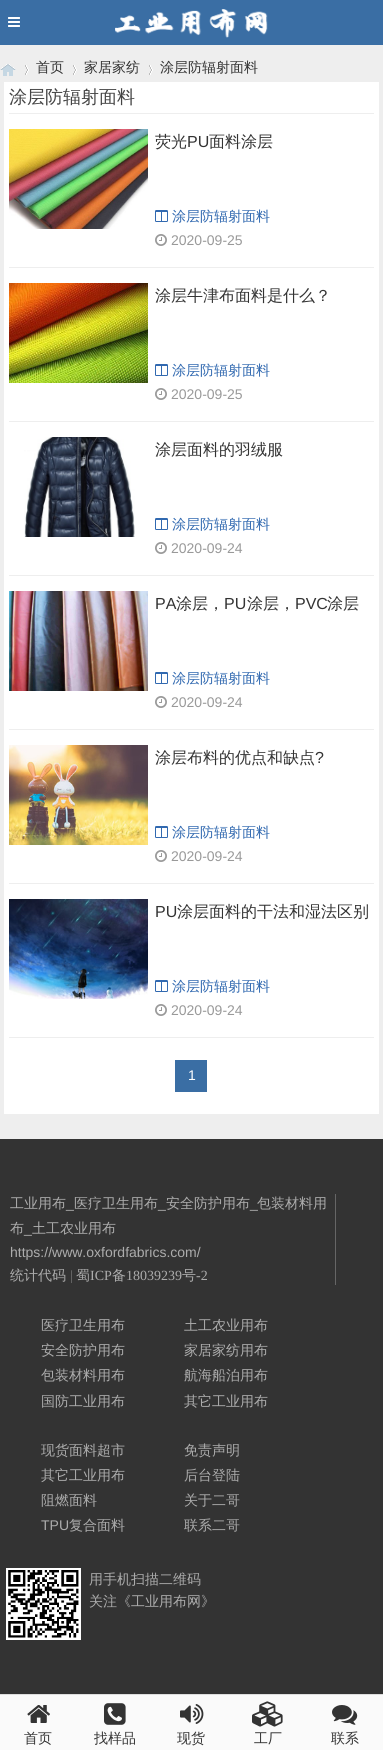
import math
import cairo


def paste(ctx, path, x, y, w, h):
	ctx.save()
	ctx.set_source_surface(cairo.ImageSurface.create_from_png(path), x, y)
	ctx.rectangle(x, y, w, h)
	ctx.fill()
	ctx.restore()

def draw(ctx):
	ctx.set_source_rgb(0.933, 0.933, 0.933)
	ctx.paint()
	ctx.set_source_rgb(0.227, 0.431, 0.643)
	ctx.rectangle(0, 0, 383, 45)
	ctx.fill()
	paste(ctx, 'media/1.png', 8, 17, 12, 10)
	paste(ctx, 'media/2.png', 115, 9, 153, 29)
	paste(ctx, 'media/3.png', 0, 64, 16, 12)
	paste(ctx, 'media/4.png', 25, 65, 4, 10)
	ctx.select_font_face('WenQuanYi Zen Hei Medium')
	ctx.set_font_size(14)
	ctx.set_source_rgb(0.2, 0.2, 0.2)
	ctx.move_to(36, 72)
	ctx.show_text('首页')
	paste(ctx, 'media/4.png', 73, 65, 4, 10)
	ctx.move_to(84, 72)
	ctx.show_text('家居家纺')
	paste(ctx, 'media/4.png', 149, 65, 4, 10)
	ctx.move_to(160, 72)
	ctx.show_text('涂层防辐射面料')
	ctx.set_source_rgb(1, 1, 1)
	ctx.rectangle(4, 82, 375, 1032)
	ctx.fill()
	ctx.set_source_rgb(0.933, 0.933, 0.933)
	ctx.rectangle(9, 113, 365, 1)
	ctx.fill()
	ctx.set_font_size(18)
	ctx.set_source_rgb(0.267, 0.267, 0.267)
	ctx.move_to(9, 103)
	ctx.show_text('涂层防辐射面料')
	ctx.set_source_rgb(0.933, 0.933, 0.933)
	ctx.rectangle(9, 267, 365, 1)
	ctx.fill()
	paste(ctx, 'media/5.png', 9, 129, 139, 100)
	ctx.set_font_size(16)
	ctx.set_source_rgb(0.2, 0.2, 0.2)
	ctx.move_to(155, 147)
	ctx.show_text('荧光')
	ctx.select_font_face('Liberation Sans')
	ctx.move_to(187, 147)
	ctx.show_text('PU')
	ctx.select_font_face('WenQuanYi Zen Hei Medium')
	ctx.move_to(209, 147)
	ctx.show_text('面料涂层')
	paste(ctx, 'media/6.png', 155, 210, 13, 12)
	ctx.set_font_size(14)
	ctx.set_source_rgb(0.192, 0.412, 0.69)
	ctx.move_to(172, 221)
	ctx.show_text('涂层防辐射面料')
	paste(ctx, 'media/7.png', 155, 234, 12, 12)
	ctx.select_font_face('Liberation Sans')
	ctx.set_source_rgb(0.6, 0.6, 0.6)
	ctx.move_to(171, 245)
	ctx.show_text('2020-09-25')
	ctx.set_source_rgb(0.933, 0.933, 0.933)
	ctx.rectangle(9, 421, 365, 1)
	ctx.fill()
	paste(ctx, 'media/8.png', 9, 283, 139, 100)
	ctx.select_font_face('WenQuanYi Zen Hei Medium')
	ctx.set_font_size(16)
	ctx.set_source_rgb(0.2, 0.2, 0.2)
	ctx.move_to(155, 301)
	ctx.show_text('涂层牛津布面料是什么？')
	paste(ctx, 'media/6.png', 155, 364, 13, 12)
	ctx.set_font_size(14)
	ctx.set_source_rgb(0.192, 0.412, 0.69)
	ctx.move_to(172, 375)
	ctx.show_text('涂层防辐射面料')
	paste(ctx, 'media/7.png', 155, 388, 12, 12)
	ctx.select_font_face('Liberation Sans')
	ctx.set_source_rgb(0.6, 0.6, 0.6)
	ctx.move_to(171, 399)
	ctx.show_text('2020-09-25')
	ctx.set_source_rgb(0.933, 0.933, 0.933)
	ctx.rectangle(9, 575, 365, 1)
	ctx.fill()
	paste(ctx, 'media/9.png', 24, 437, 111, 100)
	ctx.select_font_face('WenQuanYi Zen Hei Medium')
	ctx.set_font_size(16)
	ctx.set_source_rgb(0.2, 0.2, 0.2)
	ctx.move_to(155, 455)
	ctx.show_text('涂层面料的羽绒服')
	paste(ctx, 'media/6.png', 155, 518, 13, 12)
	ctx.set_font_size(14)
	ctx.set_source_rgb(0.192, 0.412, 0.69)
	ctx.move_to(172, 529)
	ctx.show_text('涂层防辐射面料')
	paste(ctx, 'media/7.png', 155, 542, 12, 12)
	ctx.select_font_face('Liberation Sans')
	ctx.set_source_rgb(0.6, 0.6, 0.6)
	ctx.move_to(171, 553)
	ctx.show_text('2020-09-24')
	ctx.set_source_rgb(0.933, 0.933, 0.933)
	ctx.rectangle(9, 729, 365, 1)
	ctx.fill()
	paste(ctx, 'media/10.png', 9, 591, 139, 100)
	ctx.set_font_size(16)
	ctx.set_source_rgb(0.2, 0.2, 0.2)
	ctx.move_to(155, 609)
	ctx.show_text('PA')
	ctx.select_font_face('WenQuanYi Zen Hei Medium')
	ctx.move_to(176, 609)
	ctx.show_text('涂层，')
	ctx.select_font_face('Liberation Sans')
	ctx.move_to(224, 609)
	ctx.show_text('PU')
	ctx.select_font_face('WenQuanYi Zen Hei Medium')
	ctx.move_to(247, 609)
	ctx.show_text('涂层，')
	ctx.select_font_face('Liberation Sans')
	ctx.move_to(295, 609)
	ctx.show_text('PVC')
	ctx.select_font_face('WenQuanYi Zen Hei Medium')
	ctx.move_to(327, 609)
	ctx.show_text('涂层')
	paste(ctx, 'media/6.png', 155, 672, 13, 12)
	ctx.set_font_size(14)
	ctx.set_source_rgb(0.192, 0.412, 0.69)
	ctx.move_to(172, 683)
	ctx.show_text('涂层防辐射面料')
	paste(ctx, 'media/7.png', 155, 696, 12, 12)
	ctx.select_font_face('Liberation Sans')
	ctx.set_source_rgb(0.6, 0.6, 0.6)
	ctx.move_to(171, 707)
	ctx.show_text('2020-09-24')
	ctx.set_source_rgb(0.933, 0.933, 0.933)
	ctx.rectangle(9, 883, 365, 1)
	ctx.fill()
	paste(ctx, 'media/11.png', 9, 745, 139, 100)
	ctx.select_font_face('WenQuanYi Zen Hei Medium')
	ctx.set_font_size(16)
	ctx.set_source_rgb(0.2, 0.2, 0.2)
	ctx.move_to(155, 763)
	ctx.show_text('涂层布料的优点和缺点')
	ctx.select_font_face('Liberation Sans')
	ctx.move_to(315, 763)
	ctx.show_text('?')
	paste(ctx, 'media/6.png', 155, 826, 13, 12)
	ctx.select_font_face('WenQuanYi Zen Hei Medium')
	ctx.set_font_size(14)
	ctx.set_source_rgb(0.192, 0.412, 0.69)
	ctx.move_to(172, 837)
	ctx.show_text('涂层防辐射面料')
	paste(ctx, 'media/7.png', 155, 850, 12, 12)
	ctx.select_font_face('Liberation Sans')
	ctx.set_source_rgb(0.6, 0.6, 0.6)
	ctx.move_to(171, 861)
	ctx.show_text('2020-09-24')
	ctx.set_source_rgb(0.933, 0.933, 0.933)
	ctx.rectangle(9, 1037, 365, 1)
	ctx.fill()
	paste(ctx, 'media/12.png', 9, 899, 139, 100)
	ctx.set_font_size(16)
	ctx.set_source_rgb(0.2, 0.2, 0.2)
	ctx.move_to(155, 917)
	ctx.show_text('PU')
	ctx.select_font_face('WenQuanYi Zen Hei Medium')
	ctx.move_to(177, 917)
	ctx.show_text('涂层面料的干法和湿法区别')
	paste(ctx, 'media/6.png', 155, 980, 13, 12)
	ctx.set_font_size(14)
	ctx.set_source_rgb(0.192, 0.412, 0.69)
	ctx.move_to(172, 991)
	ctx.show_text('涂层防辐射面料')
	paste(ctx, 'media/7.png', 155, 1004, 12, 12)
	ctx.select_font_face('Liberation Sans')
	ctx.set_source_rgb(0.6, 0.6, 0.6)
	ctx.move_to(171, 1015)
	ctx.show_text('2020-09-24')
	ctx.set_source_rgb(0.227, 0.431, 0.643)
	ctx.rectangle(175, 1060, 32, 32)
	ctx.fill()
	ctx.set_source_rgb(1, 1, 1)
	ctx.move_to(188, 1080)
	ctx.show_text('1')
	ctx.set_source_rgb(0.2, 0.2, 0.2)
	ctx.rectangle(0, 1139, 383, 555)
	ctx.fill()
	ctx.select_font_face('WenQuanYi Zen Hei Medium')
	ctx.set_source_rgb(0.675, 0.675, 0.675)
	ctx.move_to(10, 1208)
	ctx.show_text('工业用布')
	ctx.select_font_face('Liberation Sans')
	ctx.move_to(66, 1208)
	ctx.show_text('_')
	ctx.select_font_face('WenQuanYi Zen Hei Medium')
	ctx.move_to(74, 1208)
	ctx.show_text('医疗卫生用布')
	ctx.select_font_face('Liberation Sans')
	ctx.move_to(158, 1208)
	ctx.show_text('_')
	ctx.select_font_face('WenQuanYi Zen Hei Medium')
	ctx.move_to(166, 1208)
	ctx.show_text('安全防护用布')
	ctx.select_font_face('Liberation Sans')
	ctx.move_to(250, 1208)
	ctx.show_text('_')
	ctx.select_font_face('WenQuanYi Zen Hei Medium')
	ctx.move_to(257, 1208)
	ctx.show_text('包装材料用')
	ctx.move_to(10, 1233)
	ctx.show_text('布')
	ctx.select_font_face('Liberation Sans')
	ctx.move_to(24, 1233)
	ctx.show_text('_')
	ctx.select_font_face('WenQuanYi Zen Hei Medium')
	ctx.move_to(32, 1233)
	ctx.show_text('土工农业用布')
	ctx.select_font_face('Liberation Sans')
	ctx.move_to(10, 1257)
	ctx.show_text('https://www.oxfordfabrics.com/')
	ctx.select_font_face('WenQuanYi Zen Hei Medium')
	ctx.move_to(10, 1280)
	ctx.show_text('统计代码')
	ctx.select_font_face('Liberation Serif')
	ctx.set_source_rgb(0.467, 0.467, 0.467)
	ctx.move_to(70, 1280)
	ctx.show_text('|')
	ctx.select_font_face('WenQuanYi Zen Hei Medium')
	ctx.set_source_rgb(0.675, 0.675, 0.675)
	ctx.move_to(76, 1280)
	ctx.show_text('蜀')
	ctx.select_font_face('Liberation Serif')
	ctx.move_to(90, 1280)
	ctx.show_text('ICP')
	ctx.select_font_face('WenQuanYi Zen Hei Medium')
	ctx.move_to(112, 1280)
	ctx.show_text('备')
	ctx.select_font_face('Liberation Serif')
	ctx.move_to(126, 1280)
	ctx.show_text('18039239')
	ctx.select_font_face('WenQuanYi Zen Hei Medium')
	ctx.move_to(182, 1280)
	ctx.show_text('号')
	ctx.select_font_face('Liberation Serif')
	ctx.move_to(196, 1280)
	ctx.show_text('-2')
	ctx.set_source_rgb(0.4, 0.4, 0.4)
	ctx.rectangle(335, 1194, 1, 91)
	ctx.fill()
	ctx.select_font_face('WenQuanYi Zen Hei Medium')
	ctx.set_source_rgb(0.675, 0.675, 0.675)
	for x, y, s in [
		(41, 1330, '医疗卫生用布'),
		(41, 1355, '安全防护用布'),
		(41, 1380, '包装材料用布'),
		(41, 1406, '国防工业用布'),
		(184, 1330, '土工农业用布'),
		(184, 1355, '家居家纺用布'),
		(184, 1380, '航海船泊用布'),
		(184, 1406, '其它工业用布'),
		(41, 1455, '现货面料超市'),
		(41, 1480, '其它工业用布'),
		(41, 1505, '阻燃面料'),
	]:
		ctx.move_to(x, y)
		ctx.show_text(s)
	ctx.select_font_face('Liberation Sans')
	ctx.move_to(41, 1530)
	ctx.show_text('TPU')
	ctx.select_font_face('WenQuanYi Zen Hei Medium')
	for x, y, s in [
		(69, 1530, '复合面料'),
		(184, 1455, '免责声明'),
		(184, 1480, '后台登陆'),
		(184, 1505, '关于二哥'),
		(184, 1530, '联系二哥'),
	]:
		ctx.move_to(x, y)
		ctx.show_text(s)
	paste(ctx, 'media/13.png', 6, 1568, 75, 72)
	ctx.move_to(89, 1584)
	ctx.show_text('用手机扫描二维码')
	ctx.move_to(89, 1606)
	ctx.show_text('关注《工业用布网》')
	ctx.set_source_rgb(0.98, 0.98, 0.98)
	ctx.rectangle(0, 1695, 383, 55)
	ctx.fill()
	ctx.set_source_rgb(0.867, 0.867, 0.867)
	ctx.rectangle(0, 1694, 383, 1)
	ctx.fill()
	paste(ctx, 'media/14.png', 27, 1705, 23, 18)
	ctx.set_source_rgb(0.2, 0.2, 0.2)
	ctx.move_to(24, 1743)
	ctx.show_text('首页')
	paste(ctx, 'media/15.png', 104, 1703, 22, 22)
	ctx.move_to(94, 1743)
	ctx.show_text('找样品')
	paste(ctx, 'media/16.png', 180, 1704, 24, 20)
	ctx.move_to(177, 1743)
	ctx.show_text('现货')
	paste(ctx, 'media/17.png', 252, 1701, 31, 26)
	ctx.move_to(254, 1743)
	ctx.show_text('工厂')
	paste(ctx, 'media/18.png', 332, 1705, 26, 20)
	ctx.move_to(331, 1743)
	ctx.show_text('联系')


surface = cairo.ImageSurface(cairo.FORMAT_RGB24, 383, 1750)
ctx = cairo.Context(surface)
options = cairo.FontOptions()
options.set_hint_metrics(cairo.HINT_METRICS_OFF)
options.set_hint_style(cairo.HINT_STYLE_NONE)
ctx.set_font_options(options)
ctx.set_miter_limit(4)
draw(ctx)
surface.write_to_png('image.png')
